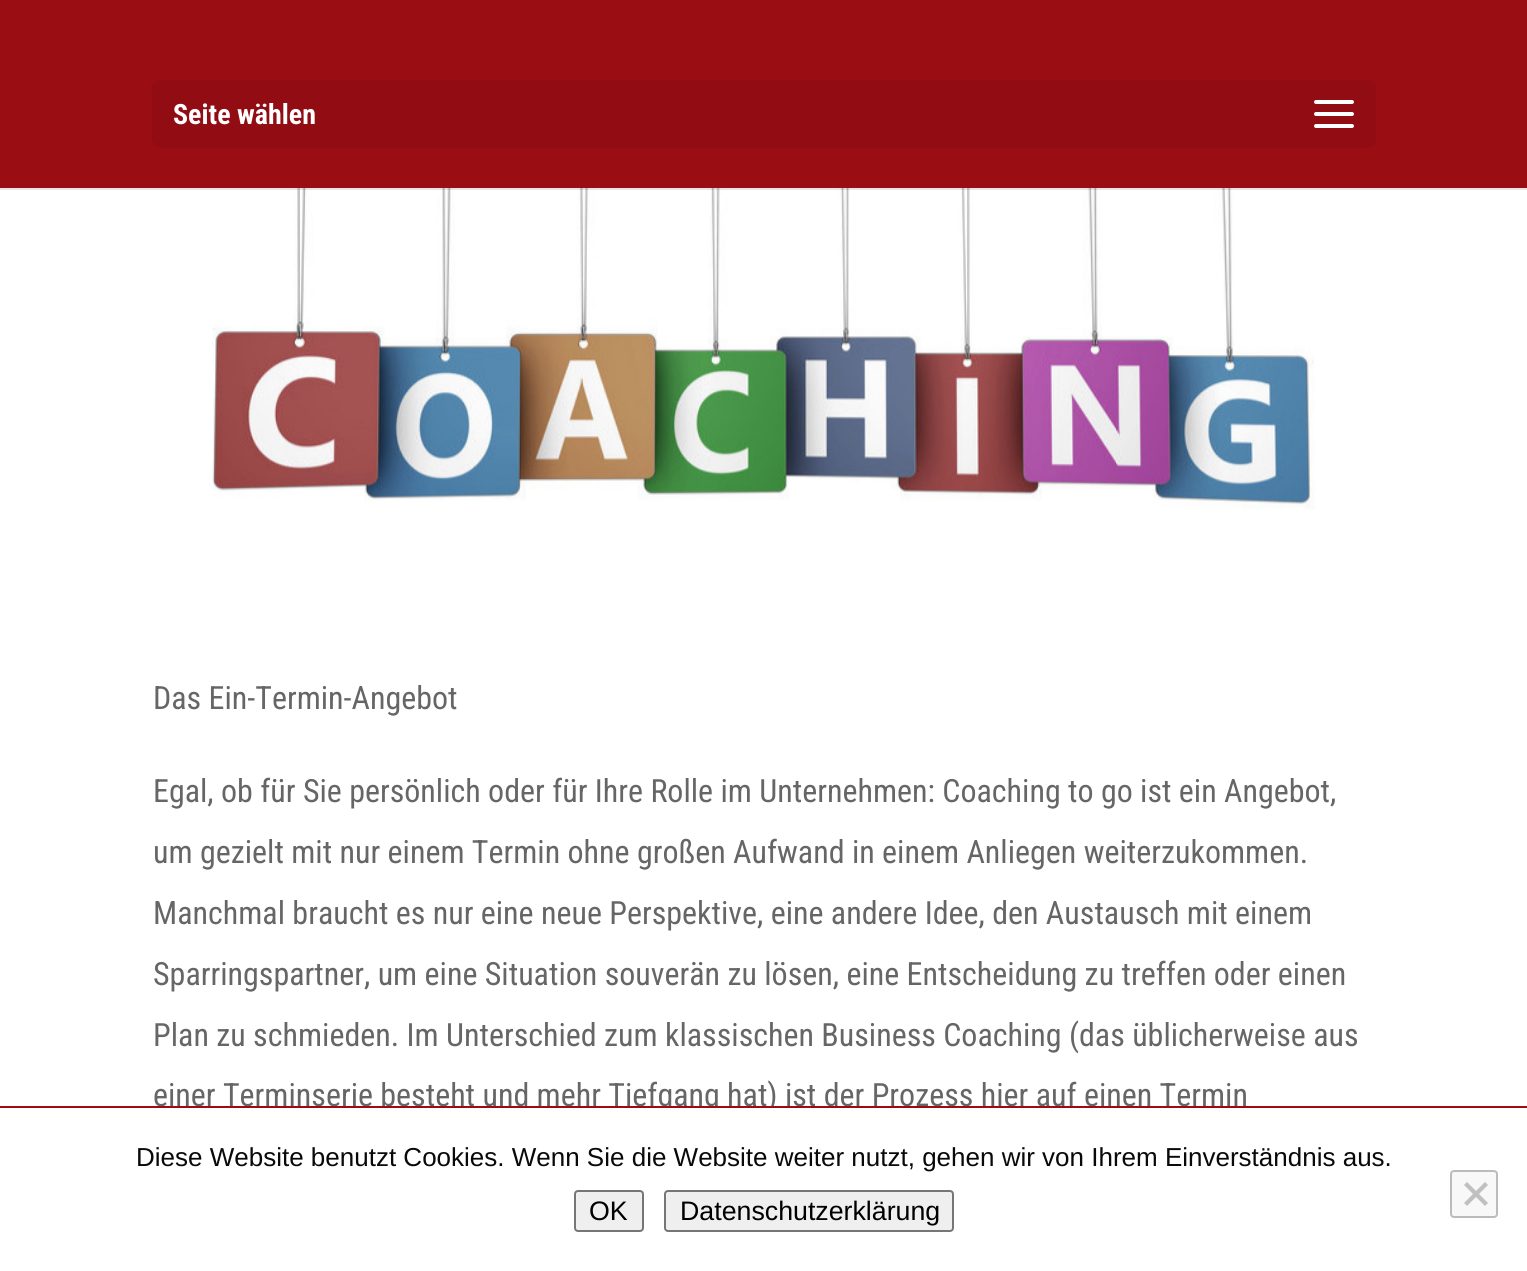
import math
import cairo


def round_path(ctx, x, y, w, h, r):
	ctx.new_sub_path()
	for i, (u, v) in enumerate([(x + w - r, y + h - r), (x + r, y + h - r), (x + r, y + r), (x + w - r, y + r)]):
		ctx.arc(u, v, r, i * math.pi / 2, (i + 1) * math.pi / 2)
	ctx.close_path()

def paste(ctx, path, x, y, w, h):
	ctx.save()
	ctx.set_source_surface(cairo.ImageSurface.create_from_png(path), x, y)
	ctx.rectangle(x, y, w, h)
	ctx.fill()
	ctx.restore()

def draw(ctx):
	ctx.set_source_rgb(1, 1, 1)
	ctx.paint()
	paste(ctx, 'media/2.png', 212, 188, 1103, 322)
	ctx.set_source_rgba(0, 0, 0, 0.1)
	ctx.rectangle(0, 188, 1527, 2)
	ctx.fill()
	ctx.set_source_rgb(0.6, 0.051, 0.078)
	ctx.rectangle(0, 0, 1527, 188)
	ctx.fill()
	ctx.set_source_rgb(0.569, 0.047, 0.075)
	round_path(ctx, 152, 80, 1224, 68, 10)
	ctx.fill()
	ctx.select_font_face('Roboto Condensed', cairo.FONT_SLANT_NORMAL, cairo.FONT_WEIGHT_BOLD)
	ctx.set_font_size(28)
	ctx.set_source_rgb(1, 1, 1)
	ctx.move_to(173, 124)
	ctx.show_text('Seite wählen')
	paste(ctx, 'media/1.png', 1314, 100, 40, 28)
	ctx.select_font_face('Roboto Condensed')
	ctx.set_font_size(32)
	ctx.set_source_rgb(0.4, 0.4, 0.4)
	for x, y, s in [
		(153, 709, 'Das Ein-Termin-Angebot'),
		(153, 802, 'Egal, ob für Sie persönlich oder für Ihre Rolle im Unternehmen: Coaching to go ist ein Angebot,'),
		(153, 863, 'um gezielt mit nur einem Termin ohne großen Aufwand in einem Anliegen weiterzukommen.'),
		(153, 924, 'Manchmal braucht es nur eine neue Perspektive, eine andere Idee, den Austausch mit einem'),
		(153, 985, 'Sparringspartner, um eine Situation souverän zu lösen, eine Entscheidung zu treffen oder einen'),
		(153, 1046, 'Plan zu schmieden. Im Unterschied zum klassischen Business Coaching (das üblicherweise aus'),
		(153, 1106, 'einer Terminserie besteht und mehr Tiefgang hat) ist der Prozess hier auf einen Termin'),
	]:
		ctx.move_to(x, y)
		ctx.show_text(s)
	ctx.set_source_rgb(1, 1, 1)
	ctx.rectangle(659, 1108, 114, 6)
	ctx.fill()
	ctx.set_source_rgb(0.6, 0.051, 0.078)
	ctx.rectangle(0, 1106, 1527, 2)
	ctx.fill()
	ctx.select_font_face('Liberation Sans')
	ctx.set_font_size(26)
	ctx.set_source_rgb(0.039, 0.039, 0.039)
	ctx.move_to(136, 1166)
	ctx.show_text('Diese Website benutzt Cookies. Wenn Sie die Website weiter nutzt, gehen wir von Ihrem Einverständnis aus.')
	ctx.set_source_rgb(0.937, 0.937, 0.937)
	round_path(ctx, 575, 1191, 68, 40, 3)
	ctx.fill_preserve()
	ctx.set_source_rgb(0.463, 0.463, 0.463)
	ctx.stroke()
	ctx.set_font_size(26.75)
	ctx.set_source_rgb(0, 0, 0)
	ctx.move_to(589, 1220)
	ctx.show_text('OK')
	ctx.set_source_rgb(0.937, 0.937, 0.937)
	round_path(ctx, 665, 1191, 288, 40, 3)
	ctx.fill_preserve()
	ctx.set_source_rgb(0.463, 0.463, 0.463)
	ctx.stroke()
	ctx.set_source_rgb(0, 0, 0)
	ctx.move_to(680, 1220)
	ctx.show_text('Datenschutzerklärung')
	ctx.set_source_rgb(0.969, 0.969, 0.969)
	round_path(ctx, 1451, 1171, 46, 46, 3)
	ctx.fill_preserve()
	ctx.set_source_rgb(0.733, 0.733, 0.733)
	ctx.stroke()
	ctx.set_source_rgb(0.753, 0.753, 0.753)
	ctx.new_path()
	ctx.move_to(1485, 1182)
	ctx.line_to(1488, 1185)
	ctx.line_to(1467, 1206)
	ctx.line_to(1464, 1203)
	ctx.close_path()
	ctx.fill()
	ctx.new_path()
	ctx.move_to(1464, 1185)
	ctx.line_to(1467, 1182)
	ctx.line_to(1488, 1203)
	ctx.line_to(1485, 1206)
	ctx.close_path()
	ctx.fill()


surface = cairo.ImageSurface(cairo.FORMAT_RGB24, 1527, 1271)
ctx = cairo.Context(surface)
options = cairo.FontOptions()
options.set_hint_metrics(cairo.HINT_METRICS_OFF)
options.set_hint_style(cairo.HINT_STYLE_NONE)
ctx.set_font_options(options)
ctx.set_miter_limit(4)
draw(ctx)
surface.write_to_png('image.png')
